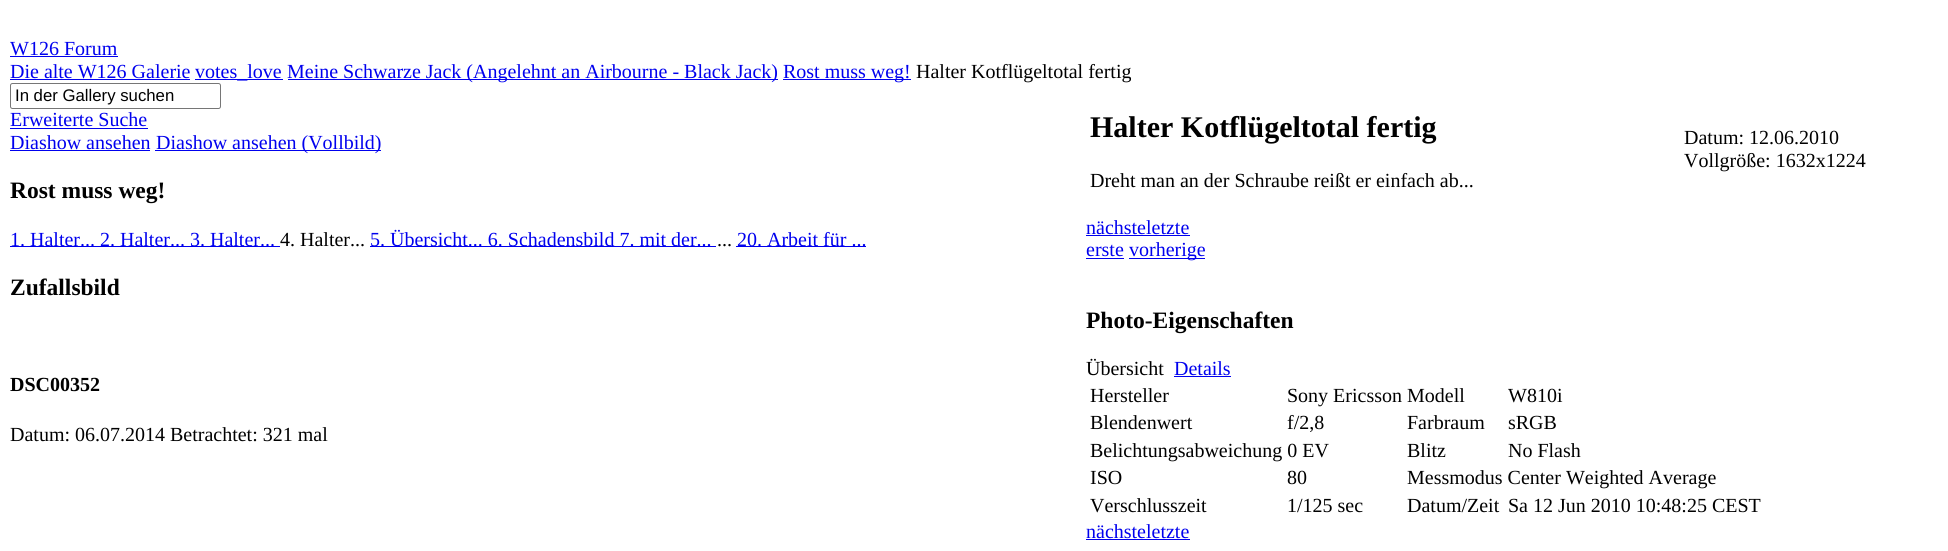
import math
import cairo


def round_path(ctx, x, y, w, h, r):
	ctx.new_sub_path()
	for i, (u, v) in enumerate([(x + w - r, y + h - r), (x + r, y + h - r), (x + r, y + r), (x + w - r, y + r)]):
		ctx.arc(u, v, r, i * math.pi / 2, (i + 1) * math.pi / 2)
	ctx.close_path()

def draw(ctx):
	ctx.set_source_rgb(1, 1, 1)
	ctx.paint()
	ctx.select_font_face('Liberation Serif')
	ctx.set_font_size(20)
	ctx.set_source_rgb(0, 0, 0.933)
	ctx.move_to(10, 55)
	ctx.show_text('W126 Forum')
	ctx.rectangle(10, 56, 108, 1)
	ctx.fill()
	ctx.move_to(10, 78)
	ctx.show_text('Die alte W126 Galerie')
	ctx.rectangle(10, 79, 180, 1)
	ctx.fill()
	ctx.rectangle(195, 79, 88, 1)
	ctx.fill()
	ctx.move_to(195, 78)
	ctx.show_text('votes_love')
	ctx.rectangle(288, 79, 490, 1)
	ctx.fill()
	ctx.move_to(287, 78)
	ctx.show_text('Meine Schwarze Jack (Angelehnt an Airbourne - Black Jack)')
	ctx.rectangle(783, 79, 128, 1)
	ctx.fill()
	ctx.move_to(783, 78)
	ctx.show_text('Rost muss weg!')
	ctx.set_source_rgb(0, 0, 0)
	ctx.move_to(916, 78)
	ctx.show_text('Halter Kotflügeltotal fertig')
	round_path(ctx, 10.5, 83.5, 210, 25, 2)
	ctx.set_source_rgb(0.463, 0.463, 0.463)
	ctx.set_line_width(1)
	ctx.stroke()
	ctx.select_font_face('Liberation Sans')
	ctx.set_font_size(16.75)
	ctx.set_source_rgb(0, 0, 0)
	ctx.move_to(15, 101)
	ctx.show_text('In der Gallery suchen')
	ctx.select_font_face('Liberation Serif')
	ctx.set_font_size(20)
	ctx.set_source_rgb(0, 0, 0.933)
	ctx.move_to(10, 126)
	ctx.show_text('Erweiterte Suche')
	ctx.rectangle(10, 128, 138, 1)
	ctx.fill()
	ctx.move_to(10, 149)
	ctx.show_text('Diashow ansehen')
	ctx.rectangle(10, 150, 140, 1)
	ctx.fill()
	ctx.rectangle(155, 150, 226, 1)
	ctx.fill()
	ctx.move_to(156, 149)
	ctx.show_text('Diashow ansehen (Vollbild)')
	ctx.select_font_face('Liberation Serif', cairo.FONT_SLANT_NORMAL, cairo.FONT_WEIGHT_BOLD)
	ctx.set_font_size(23.5)
	ctx.set_source_rgb(0, 0, 0)
	ctx.move_to(10, 198)
	ctx.show_text('Rost muss weg!')
	ctx.set_source_rgb(0, 0, 0.933)
	ctx.rectangle(10, 246, 270, 1)
	ctx.fill()
	ctx.select_font_face('Liberation Serif')
	ctx.set_font_size(20)
	ctx.move_to(10, 246)
	ctx.show_text('1. Halter... 2. Halter... 3. Halter...')
	ctx.set_source_rgb(0, 0, 0)
	ctx.move_to(280, 246)
	ctx.show_text('4. Halter...')
	ctx.set_source_rgb(0, 0, 0.933)
	ctx.rectangle(370, 246, 346, 1)
	ctx.fill()
	ctx.move_to(370, 246)
	ctx.show_text('5. Übersicht... 6. Schadensbild 7. mit der...')
	ctx.set_source_rgb(0, 0, 0)
	ctx.move_to(717, 246)
	ctx.show_text('...')
	ctx.set_source_rgb(0, 0, 0.933)
	ctx.rectangle(736, 246, 130, 1)
	ctx.fill()
	ctx.move_to(737, 246)
	ctx.show_text('20. Arbeit für ...')
	ctx.select_font_face('Liberation Serif', cairo.FONT_SLANT_NORMAL, cairo.FONT_WEIGHT_BOLD)
	ctx.set_font_size(23.5)
	ctx.set_source_rgb(0, 0, 0)
	ctx.move_to(10, 295)
	ctx.show_text('Zufallsbild')
	ctx.set_font_size(20)
	ctx.move_to(10, 391)
	ctx.show_text('DSC00352')
	ctx.select_font_face('Liberation Serif')
	ctx.move_to(10, 441)
	ctx.show_text('Datum: 06.07.2014 Betrachtet: 321 mal')
	ctx.select_font_face('Liberation Serif', cairo.FONT_SLANT_NORMAL, cairo.FONT_WEIGHT_BOLD)
	ctx.set_font_size(30)
	ctx.move_to(1090, 137)
	ctx.show_text('Halter Kotflügeltotal fertig')
	ctx.select_font_face('Liberation Serif')
	ctx.set_font_size(20)
	for x, y, s in [
		(1090, 187, 'Dreht man an der Schraube reißt er einfach ab...'),
		(1684, 144, 'Datum: 12.06.2010'),
		(1684, 167, 'Vollgröße: 1632x1224'),
	]:
		ctx.move_to(x, y)
		ctx.show_text(s)
	ctx.set_source_rgb(0, 0, 0.933)
	ctx.move_to(1086, 234)
	ctx.show_text('nächsteletzte')
	ctx.rectangle(1086, 235, 104, 1)
	ctx.fill()
	ctx.move_to(1086, 256)
	ctx.show_text('erste')
	ctx.rectangle(1086, 258, 38, 1)
	ctx.fill()
	ctx.rectangle(1129, 258, 76, 1)
	ctx.fill()
	ctx.move_to(1129, 256)
	ctx.show_text('vorherige')
	ctx.select_font_face('Liberation Serif', cairo.FONT_SLANT_NORMAL, cairo.FONT_WEIGHT_BOLD)
	ctx.set_font_size(23.5)
	ctx.set_source_rgb(0, 0, 0)
	ctx.move_to(1086, 328)
	ctx.show_text('Photo-Eigenschaften')
	ctx.select_font_face('Liberation Serif')
	ctx.set_font_size(20)
	ctx.move_to(1086, 375)
	ctx.show_text('Übersicht')
	ctx.set_source_rgb(0, 0, 0.933)
	ctx.move_to(1174, 375)
	ctx.show_text('Details')
	ctx.rectangle(1174, 376, 57, 1)
	ctx.fill()
	ctx.set_source_rgb(0, 0, 0)
	for x, y, s in [
		(1090, 402, 'Hersteller'),
		(1287, 402, 'Sony Ericsson Modell'),
		(1508, 402, 'W810i'),
		(1090, 429, 'Blendenwert'),
		(1287, 429, 'f/2,8'),
		(1407, 429, 'Farbraum'),
		(1508, 429, 'sRGB'),
		(1090, 457, 'Belichtungsabweichung 0 EV'),
		(1407, 457, 'Blitz'),
		(1508, 457, 'No Flash'),
		(1090, 484, 'ISO'),
		(1287, 484, '80'),
		(1407, 484, 'Messmodus Center Weighted Average'),
		(1090, 512, 'Verschlusszeit'),
		(1287, 512, '1/125 sec'),
		(1407, 512, 'Datum/Zeit'),
		(1508, 512, 'Sa 12 Jun 2010 10:48:25 CEST'),
	]:
		ctx.move_to(x, y)
		ctx.show_text(s)
	ctx.set_source_rgb(0, 0, 0.933)
	ctx.move_to(1086, 538)
	ctx.show_text('nächsteletzte')
	ctx.rectangle(1086, 539, 104, 1)
	ctx.fill()


surface = cairo.ImageSurface(cairo.FORMAT_RGB24, 1948, 551)
ctx = cairo.Context(surface)
options = cairo.FontOptions()
options.set_hint_metrics(cairo.HINT_METRICS_OFF)
options.set_hint_style(cairo.HINT_STYLE_NONE)
ctx.set_font_options(options)
ctx.set_miter_limit(4)
draw(ctx)
surface.write_to_png('image.png')
